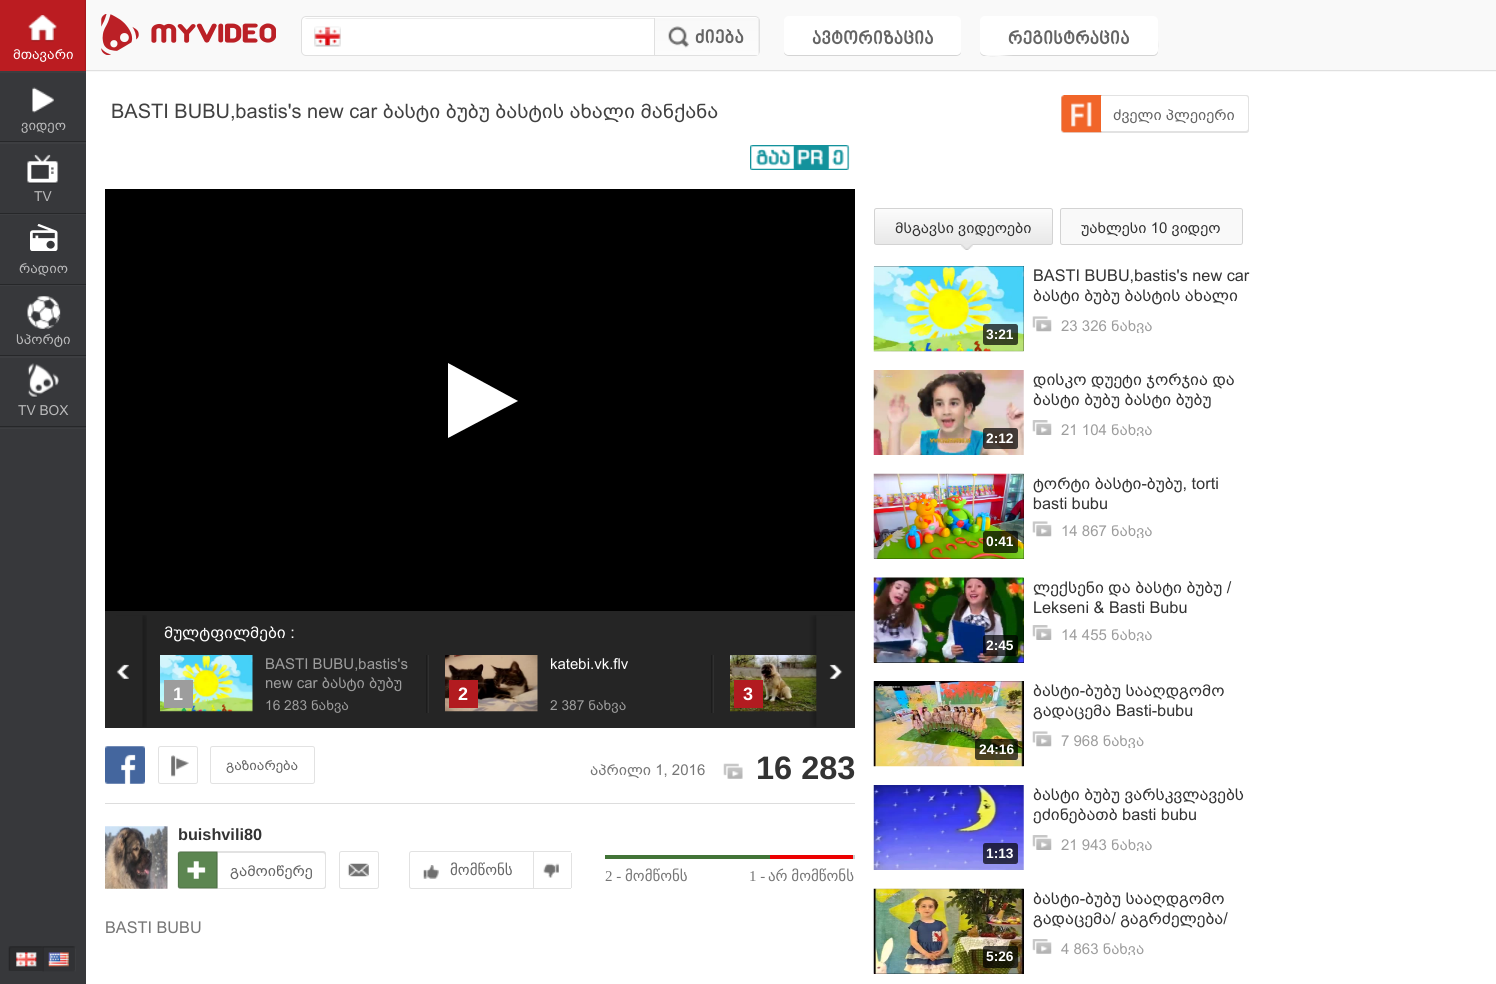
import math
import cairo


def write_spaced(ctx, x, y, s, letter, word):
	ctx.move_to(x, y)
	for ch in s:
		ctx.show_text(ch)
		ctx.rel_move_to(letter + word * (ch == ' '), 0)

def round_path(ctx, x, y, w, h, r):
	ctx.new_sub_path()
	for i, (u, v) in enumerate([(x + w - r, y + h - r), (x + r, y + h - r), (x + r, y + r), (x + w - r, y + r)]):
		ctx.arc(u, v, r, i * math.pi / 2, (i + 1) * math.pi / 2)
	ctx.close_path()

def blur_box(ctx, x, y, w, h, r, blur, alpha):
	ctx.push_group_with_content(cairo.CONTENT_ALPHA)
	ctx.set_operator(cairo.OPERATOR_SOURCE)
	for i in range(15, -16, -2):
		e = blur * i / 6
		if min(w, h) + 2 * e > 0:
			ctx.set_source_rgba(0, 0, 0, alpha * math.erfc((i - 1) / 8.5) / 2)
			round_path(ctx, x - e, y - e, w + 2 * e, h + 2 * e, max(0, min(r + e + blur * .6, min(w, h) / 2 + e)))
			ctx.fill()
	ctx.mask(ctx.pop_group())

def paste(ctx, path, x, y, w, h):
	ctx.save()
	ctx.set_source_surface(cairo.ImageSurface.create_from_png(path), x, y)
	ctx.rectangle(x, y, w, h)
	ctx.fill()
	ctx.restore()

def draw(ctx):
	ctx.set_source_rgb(1, 1, 1)
	ctx.paint()
	ctx.set_source_rgb(0.216, 0.22, 0.231)
	ctx.rectangle(0, 73, 86, 911)
	ctx.fill()
	ctx.set_source_rgb(0.239, 0.243, 0.255)
	ctx.rectangle(0, 71, 86, 2)
	ctx.fill()
	ctx.set_source_rgb(0.733, 0.11, 0.129)
	ctx.rectangle(0, 0, 86, 71)
	ctx.fill()
	ctx.set_source_rgb(0, 0, 0)
	blur_box(ctx, 86, 0, 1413, 70, 0, 1, 0.36)
	ctx.set_source_rgb(0.976, 0.976, 0.976)
	ctx.rectangle(86, 0, 1410, 70)
	ctx.fill()
	paste(ctx, 'media/1.png', 101, 14, 175, 41)
	ctx.set_source_rgb(1, 1, 1)
	round_path(ctx, 301, 16, 459, 40, 5)
	ctx.fill()
	ctx.set_source_rgb(0.922, 0.922, 0.922)
	ctx.new_path()
	ctx.move_to(306, 19)
	ctx.line_to(755, 19)
	ctx.curve_to(757, 19, 759, 20, 759, 22)
	ctx.curve_to(759, 20, 757, 18, 755, 18)
	ctx.line_to(307, 18)
	ctx.curve_to(306, 18, 305, 19, 304, 19)
	ctx.close_path()
	ctx.fill()
	round_path(ctx, 301.5, 16.5, 458, 39, 4.5)
	ctx.set_source_rgb(0.878, 0.878, 0.878)
	ctx.set_line_width(1)
	ctx.stroke()
	paste(ctx, 'media/2.png', 314, 26, 27, 21)
	gradient = cairo.LinearGradient(706, 17, 706, 55)
	gradient.add_color_stop_rgba(0, 0.973, 0.973, 0.973, 1)
	gradient.add_color_stop_rgba(1, 0.988, 0.988, 0.988, 1)
	ctx.set_source(gradient)
	ctx.rectangle(655, 18, 104, 37)
	ctx.fill()
	ctx.set_source_rgba(0, 0, 0, 0.05)
	ctx.rectangle(758, 18, 1, 37)
	ctx.fill()
	paste(ctx, 'media/3.png', 668, 26, 21, 22)
	ctx.set_source_rgb(0.878, 0.878, 0.878)
	ctx.rectangle(654, 18, 1, 37)
	ctx.fill()
	ctx.select_font_face('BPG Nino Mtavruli', cairo.FONT_SLANT_NORMAL, cairo.FONT_WEIGHT_BOLD)
	ctx.set_font_size(18.75)
	ctx.set_source_rgb(0.392, 0.392, 0.392)
	ctx.move_to(695, 44)
	ctx.show_text('ძიება')
	ctx.set_source_rgb(0.831, 0.831, 0.831)
	ctx.new_path()
	ctx.move_to(784, 52)
	ctx.curve_to(784, 54, 786, 56, 789, 56)
	ctx.line_to(956, 56)
	ctx.curve_to(959, 56, 961, 54, 961, 52)
	ctx.curve_to(960, 54, 958, 55, 956, 55)
	ctx.line_to(789, 55)
	ctx.curve_to(787, 55, 785, 54, 784, 52)
	ctx.close_path()
	ctx.fill()
	ctx.set_source_rgb(1, 1, 1)
	round_path(ctx, 784, 16, 177, 39, 5)
	ctx.fill()
	ctx.set_source_rgb(0.392, 0.392, 0.392)
	ctx.move_to(812, 45)
	ctx.show_text('ავტორიზაცია')
	ctx.set_source_rgb(0.831, 0.831, 0.831)
	ctx.new_path()
	ctx.move_to(980, 50)
	ctx.line_to(980, 51)
	ctx.curve_to(980, 54, 982, 56, 985, 56)
	ctx.line_to(1153, 56)
	ctx.curve_to(1156, 56, 1158, 54, 1158, 51)
	ctx.line_to(1158, 23)
	ctx.line_to(1157, 21)
	ctx.line_to(1158, 40)
	ctx.curve_to(1158, 44, 1160, 55, 1152, 55)
	ctx.line_to(1013, 55)
	ctx.curve_to(1003, 55, 980, 60, 980, 50)
	ctx.close_path()
	ctx.fill()
	ctx.set_source_rgb(1, 1, 1)
	round_path(ctx, 980, 16, 178, 39, 5)
	ctx.fill()
	ctx.set_source_rgb(0.392, 0.392, 0.392)
	ctx.move_to(1008, 45)
	ctx.show_text('რეგისტრაცია')
	paste(ctx, 'media/4.png', 28, 15, 29, 27)
	ctx.select_font_face('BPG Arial')
	ctx.set_font_size(13.75)
	ctx.set_source_rgb(1, 1, 1)
	ctx.move_to(13, 59)
	ctx.show_text('მთავარი')
	ctx.set_source_rgb(0.239, 0.243, 0.255)
	ctx.rectangle(0, 142, 86, 2)
	ctx.fill()
	ctx.set_source_rgb(0.149, 0.153, 0.161)
	ctx.rectangle(0, 141, 86, 1)
	ctx.fill()
	paste(ctx, 'media/5.png', 32, 87, 22, 26)
	ctx.set_source_rgb(0.729, 0.729, 0.733)
	ctx.move_to(21, 130)
	ctx.show_text('ვიდეო')
	ctx.set_source_rgb(0.239, 0.243, 0.255)
	ctx.rectangle(0, 214, 86, 1)
	ctx.fill()
	ctx.set_source_rgb(0.149, 0.153, 0.161)
	ctx.rectangle(0, 213, 86, 1)
	ctx.fill()
	paste(ctx, 'media/6.png', 27, 154, 32, 30)
	ctx.set_source_rgb(0.729, 0.729, 0.733)
	ctx.move_to(34, 201)
	ctx.show_text('TV')
	ctx.set_source_rgb(0.239, 0.243, 0.255)
	ctx.rectangle(0, 285, 86, 1)
	ctx.fill()
	ctx.set_source_rgb(0.149, 0.153, 0.161)
	ctx.rectangle(0, 284, 86, 1)
	ctx.fill()
	paste(ctx, 'media/7.png', 30, 224, 28, 27)
	ctx.set_source_rgb(0.729, 0.729, 0.733)
	ctx.move_to(19, 273)
	ctx.show_text('რადიო')
	ctx.set_source_rgb(0.239, 0.243, 0.255)
	ctx.rectangle(0, 356, 86, 2)
	ctx.fill()
	ctx.set_source_rgb(0.149, 0.153, 0.161)
	ctx.rectangle(0, 355, 86, 1)
	ctx.fill()
	paste(ctx, 'media/8.png', 27, 296, 34, 33)
	ctx.set_source_rgb(0.729, 0.729, 0.733)
	ctx.move_to(16, 344)
	ctx.show_text('სპორტი')
	ctx.set_source_rgb(0.239, 0.243, 0.255)
	ctx.rectangle(0, 428, 86, 1)
	ctx.fill()
	ctx.set_source_rgb(0.149, 0.153, 0.161)
	ctx.rectangle(0, 426, 86, 1)
	ctx.fill()
	paste(ctx, 'media/9.png', 27, 363, 32, 35)
	ctx.set_source_rgb(0.729, 0.729, 0.733)
	ctx.move_to(18, 415)
	ctx.show_text('TV BOX')
	paste(ctx, 'media/10.png', 8, 946, 35, 25)
	paste(ctx, 'media/11.png', 42, 946, 34, 26)
	ctx.set_font_size(20)
	ctx.set_source_rgb(0.255, 0.255, 0.255)
	ctx.move_to(111, 118)
	ctx.show_text('BASTI BUBU,bastis\'s new car ბასტი ბუბუ ბასტის ახალი მანქანა')
	ctx.set_source_rgb(0.886, 0.886, 0.886)
	round_path(ctx, 1061, 95, 188, 38, 2.5)
	ctx.fill()
	paste(ctx, 'media/12.png', 1061, 95, 41, 38)
	ctx.set_source_rgb(1, 1, 1)
	ctx.new_path()
	ctx.move_to(1101, 96)
	ctx.line_to(1245.5, 96)
	ctx.curve_to(1247, 96, 1248, 97, 1248, 98.5)
	ctx.line_to(1248, 128.5)
	ctx.curve_to(1248, 130, 1247, 131, 1245.5, 131)
	ctx.line_to(1101, 131)
	ctx.close_path()
	ctx.fill()
	ctx.set_font_size(15)
	ctx.set_source_rgb(0.392, 0.392, 0.392)
	ctx.move_to(1113, 120)
	ctx.show_text('ძველი პლეიერი')
	paste(ctx, 'media/13.png', 750, 145, 100, 25)
	ctx.set_source_rgb(0, 0, 0)
	ctx.rectangle(105, 189, 750, 422)
	ctx.fill()
	ctx.set_source_rgb(1, 1, 1)
	ctx.new_path()
	ctx.move_to(448, 438)
	ctx.line_to(448, 363)
	ctx.line_to(518, 401)
	ctx.close_path()
	ctx.fill()
	ctx.set_source_rgb(0.145, 0.145, 0.145)
	ctx.rectangle(105, 611, 750, 117)
	ctx.fill()
	ctx.set_font_size(16.25)
	ctx.set_source_rgb(1, 1, 1)
	ctx.move_to(164, 638)
	ctx.show_text('მულტფილმები :')
	paste(ctx, 'media/14.png', 116, 615, 31, 112)
	ctx.set_source_rgb(0.11, 0.11, 0.11)
	ctx.rectangle(426, 655, 1, 58)
	ctx.fill()
	paste(ctx, 'media/15.png', 160, 655, 93, 57)
	ctx.set_font_size(15)
	ctx.set_source_rgb(0.616, 0.616, 0.616)
	ctx.move_to(265, 669)
	ctx.show_text('BASTI BUBU,bastis\'s')
	ctx.move_to(265, 688)
	ctx.show_text('new car ბასტი ბუბუ')
	ctx.set_font_size(13.75)
	ctx.move_to(265, 710)
	ctx.show_text('16 283 ნახვა')
	ctx.rectangle(164, 680, 29, 28)
	ctx.fill()
	ctx.select_font_face('Liberation Sans', cairo.FONT_SLANT_NORMAL, cairo.FONT_WEIGHT_BOLD)
	ctx.set_font_size(18)
	ctx.set_source_rgb(1, 1, 1)
	ctx.move_to(173, 700)
	ctx.show_text('1')
	ctx.set_source_rgb(0.188, 0.188, 0.188)
	ctx.rectangle(428, 655, 1, 58)
	ctx.fill()
	ctx.set_source_rgb(0.11, 0.11, 0.11)
	ctx.rectangle(711, 655, 1, 58)
	ctx.fill()
	paste(ctx, 'media/16.png', 445, 655, 93, 57)
	ctx.select_font_face('BPG Arial')
	ctx.set_font_size(15)
	ctx.set_source_rgb(1, 1, 1)
	ctx.move_to(550, 669)
	ctx.show_text('katebi.vk.flv')
	ctx.set_font_size(13.75)
	ctx.set_source_rgb(0.616, 0.616, 0.616)
	ctx.move_to(550, 710)
	ctx.show_text('2 387 ნახვა')
	ctx.set_source_rgb(0.698, 0.106, 0.125)
	ctx.rectangle(449, 680, 29, 28)
	ctx.fill()
	ctx.select_font_face('Liberation Sans', cairo.FONT_SLANT_NORMAL, cairo.FONT_WEIGHT_BOLD)
	ctx.set_font_size(18)
	ctx.set_source_rgb(1, 1, 1)
	ctx.move_to(458, 700)
	ctx.show_text('2')
	ctx.set_source_rgb(0.188, 0.188, 0.188)
	ctx.rectangle(713, 655, 1, 58)
	ctx.fill()
	paste(ctx, 'media/17.png', 730, 655, 87, 57)
	ctx.set_source_rgb(0.698, 0.106, 0.125)
	ctx.rectangle(734, 680, 29, 28)
	ctx.fill()
	ctx.set_source_rgb(1, 1, 1)
	ctx.move_to(743, 700)
	ctx.show_text('3')
	paste(ctx, 'media/18.png', 809, 615, 34, 112)
	ctx.set_source_rgb(0.867, 0.867, 0.867)
	ctx.rectangle(105, 803, 750, 1)
	ctx.fill()
	paste(ctx, 'media/19.png', 105, 746, 40, 38)
	paste(ctx, 'media/20.png', 171, 755, 18, 22)
	round_path(ctx, 158.5, 746.5, 39, 37, 2)
	ctx.set_source_rgb(0.886, 0.886, 0.886)
	ctx.stroke()
	round_path(ctx, 210.5, 746.5, 104, 37, 2)
	ctx.stroke()
	ctx.select_font_face('BPG Arial')
	ctx.set_font_size(13.75)
	ctx.set_source_rgb(0.392, 0.392, 0.392)
	ctx.move_to(226, 770)
	ctx.show_text('გაზიარება')
	ctx.set_font_size(15)
	ctx.set_source_rgb(0.463, 0.463, 0.463)
	ctx.move_to(590, 775)
	ctx.show_text('აპრილი 1, 2016')
	paste(ctx, 'media/21.png', 723, 763, 20, 16)
	ctx.select_font_face('Liberation Sans', cairo.FONT_SLANT_NORMAL, cairo.FONT_WEIGHT_BOLD)
	ctx.set_font_size(32.5)
	ctx.set_source_rgb(0.2, 0.2, 0.2)
	ctx.move_to(756, 779)
	ctx.show_text('16 283')
	paste(ctx, 'media/22.png', 105, 826, 63, 63)
	ctx.set_font_size(16.25)
	ctx.move_to(178, 840)
	ctx.show_text('buishvili80')
	ctx.set_source_rgb(0.886, 0.886, 0.886)
	round_path(ctx, 178, 851, 148, 38, 2.5)
	ctx.fill()
	paste(ctx, 'media/23.png', 177, 851, 41, 38)
	ctx.set_source_rgb(1, 1, 1)
	ctx.new_path()
	ctx.move_to(218, 853)
	ctx.line_to(322.5, 853)
	ctx.curve_to(324, 853, 325, 854, 325, 855.5)
	ctx.line_to(325, 885.5)
	ctx.curve_to(325, 887, 324, 888, 322.5, 888)
	ctx.line_to(218, 888)
	ctx.close_path()
	ctx.fill()
	ctx.select_font_face('BPG Arial')
	ctx.set_font_size(15)
	ctx.set_source_rgb(0.392, 0.392, 0.392)
	ctx.move_to(230, 876)
	ctx.show_text('გამოიწერე')
	paste(ctx, 'media/24.png', 347, 863, 22, 14)
	round_path(ctx, 339.5, 851.5, 39, 37, 2)
	ctx.set_source_rgb(0.886, 0.886, 0.886)
	ctx.stroke()
	ctx.new_path()
	ctx.move_to(411.5, 851.5)
	ctx.line_to(533.5, 851.5)
	ctx.line_to(533.5, 888.5)
	ctx.line_to(411.5, 888.5)
	ctx.curve_to(410.5, 888.5, 409.5, 887.5, 409.5, 886.5)
	ctx.line_to(409.5, 853.5)
	ctx.curve_to(409.5, 852.5, 410.5, 851.5, 411.5, 851.5)
	ctx.close_path()
	ctx.stroke()
	paste(ctx, 'media/25.png', 423, 865, 16, 14)
	ctx.select_font_face('DejaVu Sans')
	ctx.set_source_rgb(0.392, 0.392, 0.392)
	ctx.move_to(450, 875)
	ctx.show_text('მომწონს')
	ctx.set_source_rgb(0.886, 0.886, 0.886)
	ctx.rectangle(534, 851, 37, 1)
	ctx.rectangle(571, 853, 1, 35)
	ctx.rectangle(534, 888, 37, 1)
	ctx.fill()
	paste(ctx, 'media/26.png', 543, 863, 16, 15)
	ctx.set_source_rgb(0.8, 0.8, 0.8)
	ctx.rectangle(853, 855, 2, 4)
	ctx.fill()
	ctx.set_source_rgb(0.259, 0.455, 0.216)
	ctx.rectangle(605, 855, 165, 4)
	ctx.fill()
	ctx.set_source_rgb(0.925, 0, 0)
	ctx.rectangle(770, 855, 83, 4)
	ctx.fill()
	ctx.select_font_face('Liberation Serif')
	ctx.set_source_rgb(0.463, 0.463, 0.463)
	ctx.move_to(605, 881)
	ctx.show_text('2 -')
	ctx.select_font_face('DejaVu Sans')
	ctx.move_to(625, 881)
	ctx.show_text('მომწონს')
	ctx.select_font_face('Liberation Serif')
	ctx.move_to(749, 881)
	ctx.show_text('1 -')
	ctx.select_font_face('DejaVu Sans')
	write_spaced(ctx, 768, 881, 'არ მომწონს', 0, -1)
	ctx.select_font_face('BPG Arial')
	ctx.set_font_size(16.25)
	ctx.move_to(105, 933)
	ctx.show_text('BASTI BUBU')
	ctx.save()
	round_path(ctx, 874, 208, 179, 37, 2.5)
	ctx.clip()
	gradient = cairo.LinearGradient(963, 209, 963, 244)
	gradient.add_color_stop_rgba(0, 0.988, 0.988, 0.988, 1)
	gradient.add_color_stop_rgba(1, 0.91, 0.91, 0.91, 1)
	ctx.set_source(gradient)
	ctx.rectangle(874, 209, 179, 35)
	ctx.fill()
	ctx.restore()
	round_path(ctx, 874.5, 208.5, 178, 36, 2)
	ctx.set_source_rgb(0.827, 0.827, 0.827)
	ctx.stroke()
	ctx.set_font_size(15)
	ctx.set_source_rgb(0.2, 0.2, 0.2)
	ctx.move_to(895, 233)
	ctx.show_text('მსგავსი ვიდეოები')
	paste(ctx, 'media/27.png', 961, 244, 12, 6)
	ctx.set_source_rgb(0.976, 0.976, 0.976)
	round_path(ctx, 1060.5, 208.5, 182, 36, 2)
	ctx.fill_preserve()
	ctx.set_source_rgb(0.827, 0.827, 0.827)
	ctx.stroke()
	ctx.set_source_rgb(0.2, 0.2, 0.2)
	ctx.move_to(1081, 233)
	ctx.show_text('უახლესი 10 ვიდეო')
	ctx.set_font_size(16.25)
	ctx.move_to(1033, 281)
	ctx.show_text('BASTI BUBU,bastis\'s new car')
	ctx.move_to(1033, 301)
	ctx.show_text('ბასტი ბუბუ ბასტის ახალი')
	paste(ctx, 'media/28.png', 1032, 316, 20, 16)
	ctx.save()
	ctx.rectangle(1033, 316, 216, 17)
	ctx.clip()
	ctx.set_font_size(15)
	ctx.set_source_rgb(0.616, 0.616, 0.616)
	ctx.move_to(1061, 331)
	ctx.show_text('23 326 ნახვა')
	ctx.restore()
	ctx.set_source_rgb(0, 0, 0)
	ctx.rectangle(874, 266, 150, 85)
	ctx.fill()
	paste(ctx, 'media/29.png', 873, 266, 151, 86)
	ctx.set_source_rgba(0, 0, 0, 0.7)
	round_path(ctx, 983, 324, 35, 21, 2.5)
	ctx.fill()
	ctx.select_font_face('Liberation Sans', cairo.FONT_SLANT_NORMAL, cairo.FONT_WEIGHT_BOLD)
	ctx.set_font_size(13.75)
	ctx.set_source_rgb(1, 1, 1)
	ctx.move_to(986, 339)
	ctx.show_text('3:21')
	ctx.select_font_face('BPG Arial')
	ctx.set_font_size(16.25)
	ctx.set_source_rgb(0.2, 0.2, 0.2)
	ctx.move_to(1033, 385)
	ctx.show_text('დისკო დუეტი ჯორჯია და')
	ctx.move_to(1033, 405)
	ctx.show_text('ბასტი ბუბუ ბასტი ბუბუ')
	paste(ctx, 'media/30.png', 1032, 420, 20, 15)
	ctx.save()
	ctx.rectangle(1033, 420, 216, 16)
	ctx.clip()
	ctx.set_font_size(15)
	ctx.set_source_rgb(0.616, 0.616, 0.616)
	ctx.move_to(1061, 435)
	ctx.show_text('21 104 ნახვა')
	ctx.restore()
	paste(ctx, 'media/31.png', 873, 370, 151, 85)
	ctx.set_source_rgba(0, 0, 0, 0.7)
	round_path(ctx, 983, 428, 35, 21, 2.5)
	ctx.fill()
	ctx.select_font_face('Liberation Sans', cairo.FONT_SLANT_NORMAL, cairo.FONT_WEIGHT_BOLD)
	ctx.set_font_size(13.75)
	ctx.set_source_rgb(1, 1, 1)
	ctx.move_to(986, 443)
	ctx.show_text('2:12')
	ctx.select_font_face('BPG Arial')
	ctx.set_font_size(16.25)
	ctx.set_source_rgb(0.2, 0.2, 0.2)
	ctx.move_to(1033, 489)
	ctx.show_text('ტორტი ბასტი-ბუბუ, torti')
	ctx.move_to(1033, 509)
	ctx.show_text('basti bubu')
	paste(ctx, 'media/28.png', 1032, 521, 20, 16)
	ctx.save()
	ctx.rectangle(1033, 521, 216, 17)
	ctx.clip()
	ctx.set_font_size(15)
	ctx.set_source_rgb(0.616, 0.616, 0.616)
	ctx.move_to(1061, 536)
	ctx.show_text('14 867 ნახვა')
	ctx.restore()
	ctx.set_source_rgb(0, 0, 0)
	ctx.rectangle(874, 474, 150, 85)
	ctx.fill()
	paste(ctx, 'media/32.png', 873, 473, 151, 86)
	ctx.set_source_rgba(0, 0, 0, 0.7)
	round_path(ctx, 983, 531, 35, 22, 2.5)
	ctx.fill()
	ctx.select_font_face('Liberation Sans', cairo.FONT_SLANT_NORMAL, cairo.FONT_WEIGHT_BOLD)
	ctx.set_font_size(13.75)
	ctx.set_source_rgb(1, 1, 1)
	ctx.move_to(986, 546)
	ctx.show_text('0:41')
	ctx.select_font_face('BPG Arial')
	ctx.set_font_size(16.25)
	ctx.set_source_rgb(0.2, 0.2, 0.2)
	ctx.move_to(1033, 593)
	ctx.show_text('ლექსენი და ბასტი ბუბუ /')
	ctx.move_to(1033, 613)
	ctx.show_text('Lekseni & Basti Bubu')
	paste(ctx, 'media/30.png', 1032, 625, 20, 15)
	ctx.save()
	ctx.rectangle(1033, 625, 216, 16)
	ctx.clip()
	ctx.set_font_size(15)
	ctx.set_source_rgb(0.616, 0.616, 0.616)
	ctx.move_to(1061, 640)
	ctx.show_text('14 455 ნახვა')
	ctx.restore()
	ctx.set_source_rgb(0, 0, 0)
	ctx.rectangle(874, 578, 150, 85)
	ctx.fill()
	paste(ctx, 'media/33.png', 873, 577, 151, 86)
	ctx.set_source_rgba(0, 0, 0, 0.7)
	round_path(ctx, 983, 635, 35, 21, 2.5)
	ctx.fill()
	ctx.select_font_face('Liberation Sans', cairo.FONT_SLANT_NORMAL, cairo.FONT_WEIGHT_BOLD)
	ctx.set_font_size(13.75)
	ctx.set_source_rgb(1, 1, 1)
	ctx.move_to(986, 650)
	ctx.show_text('2:45')
	ctx.select_font_face('BPG Arial')
	ctx.set_font_size(16.25)
	ctx.set_source_rgb(0.2, 0.2, 0.2)
	ctx.move_to(1033, 696)
	ctx.show_text('ბასტი-ბუბუ სააღდგომო')
	ctx.move_to(1033, 716)
	ctx.show_text('გადაცემა Basti-bubu')
	paste(ctx, 'media/28.png', 1032, 731, 20, 16)
	ctx.save()
	ctx.rectangle(1033, 731, 216, 17)
	ctx.clip()
	ctx.set_font_size(15)
	ctx.set_source_rgb(0.616, 0.616, 0.616)
	ctx.move_to(1061, 746)
	ctx.show_text('7 968 ნახვა')
	ctx.restore()
	ctx.set_source_rgb(0, 0, 0)
	ctx.rectangle(874, 681, 150, 85)
	ctx.fill()
	paste(ctx, 'media/34.png', 873, 681, 151, 86)
	ctx.set_source_rgba(0, 0, 0, 0.7)
	round_path(ctx, 975, 739, 43, 21, 2.5)
	ctx.fill()
	ctx.select_font_face('Liberation Sans', cairo.FONT_SLANT_NORMAL, cairo.FONT_WEIGHT_BOLD)
	ctx.set_font_size(13.75)
	ctx.set_source_rgb(1, 1, 1)
	ctx.move_to(979, 754)
	ctx.show_text('24:16')
	ctx.select_font_face('BPG Arial')
	ctx.set_font_size(16.25)
	ctx.set_source_rgb(0.2, 0.2, 0.2)
	ctx.move_to(1033, 800)
	ctx.show_text('ბასტი ბუბუ ვარსკვლავებს')
	ctx.move_to(1033, 820)
	ctx.show_text('ეძინებათბ basti bubu')
	paste(ctx, 'media/30.png', 1032, 835, 20, 15)
	ctx.save()
	ctx.rectangle(1033, 835, 216, 16)
	ctx.clip()
	ctx.set_font_size(15)
	ctx.set_source_rgb(0.616, 0.616, 0.616)
	ctx.move_to(1061, 850)
	ctx.show_text('21 943 ნახვა')
	ctx.restore()
	paste(ctx, 'media/35.png', 873, 785, 151, 85)
	ctx.set_source_rgba(0, 0, 0, 0.7)
	round_path(ctx, 983, 843, 35, 21, 2.5)
	ctx.fill()
	ctx.select_font_face('Liberation Sans', cairo.FONT_SLANT_NORMAL, cairo.FONT_WEIGHT_BOLD)
	ctx.set_font_size(13.75)
	ctx.set_source_rgb(1, 1, 1)
	ctx.move_to(986, 858)
	ctx.show_text('1:13')
	ctx.select_font_face('BPG Arial')
	ctx.set_font_size(16.25)
	ctx.set_source_rgb(0.2, 0.2, 0.2)
	ctx.move_to(1033, 904)
	ctx.show_text('ბასტი-ბუბუ სააღდგომო')
	ctx.move_to(1033, 924)
	ctx.show_text('გადაცემა/ გაგრძელება/')
	paste(ctx, 'media/36.png', 1032, 939, 20, 15)
	ctx.save()
	ctx.rectangle(1033, 939, 216, 16)
	ctx.clip()
	ctx.set_font_size(15)
	ctx.set_source_rgb(0.616, 0.616, 0.616)
	ctx.move_to(1061, 954)
	ctx.show_text('4 863 ნახვა')
	ctx.restore()
	ctx.set_source_rgb(0, 0, 0)
	ctx.rectangle(874, 889, 150, 85)
	ctx.fill()
	paste(ctx, 'media/37.png', 873, 888, 151, 86)
	ctx.set_source_rgba(0, 0, 0, 0.7)
	round_path(ctx, 983, 946, 35, 22, 2.5)
	ctx.fill()
	ctx.select_font_face('Liberation Sans', cairo.FONT_SLANT_NORMAL, cairo.FONT_WEIGHT_BOLD)
	ctx.set_font_size(13.75)
	ctx.set_source_rgb(1, 1, 1)
	ctx.move_to(986, 961)
	ctx.show_text('5:26')


surface = cairo.ImageSurface(cairo.FORMAT_RGB24, 1496, 984)
ctx = cairo.Context(surface)
options = cairo.FontOptions()
options.set_hint_metrics(cairo.HINT_METRICS_OFF)
options.set_hint_style(cairo.HINT_STYLE_NONE)
ctx.set_font_options(options)
ctx.set_miter_limit(4)
draw(ctx)
surface.write_to_png('image.png')
